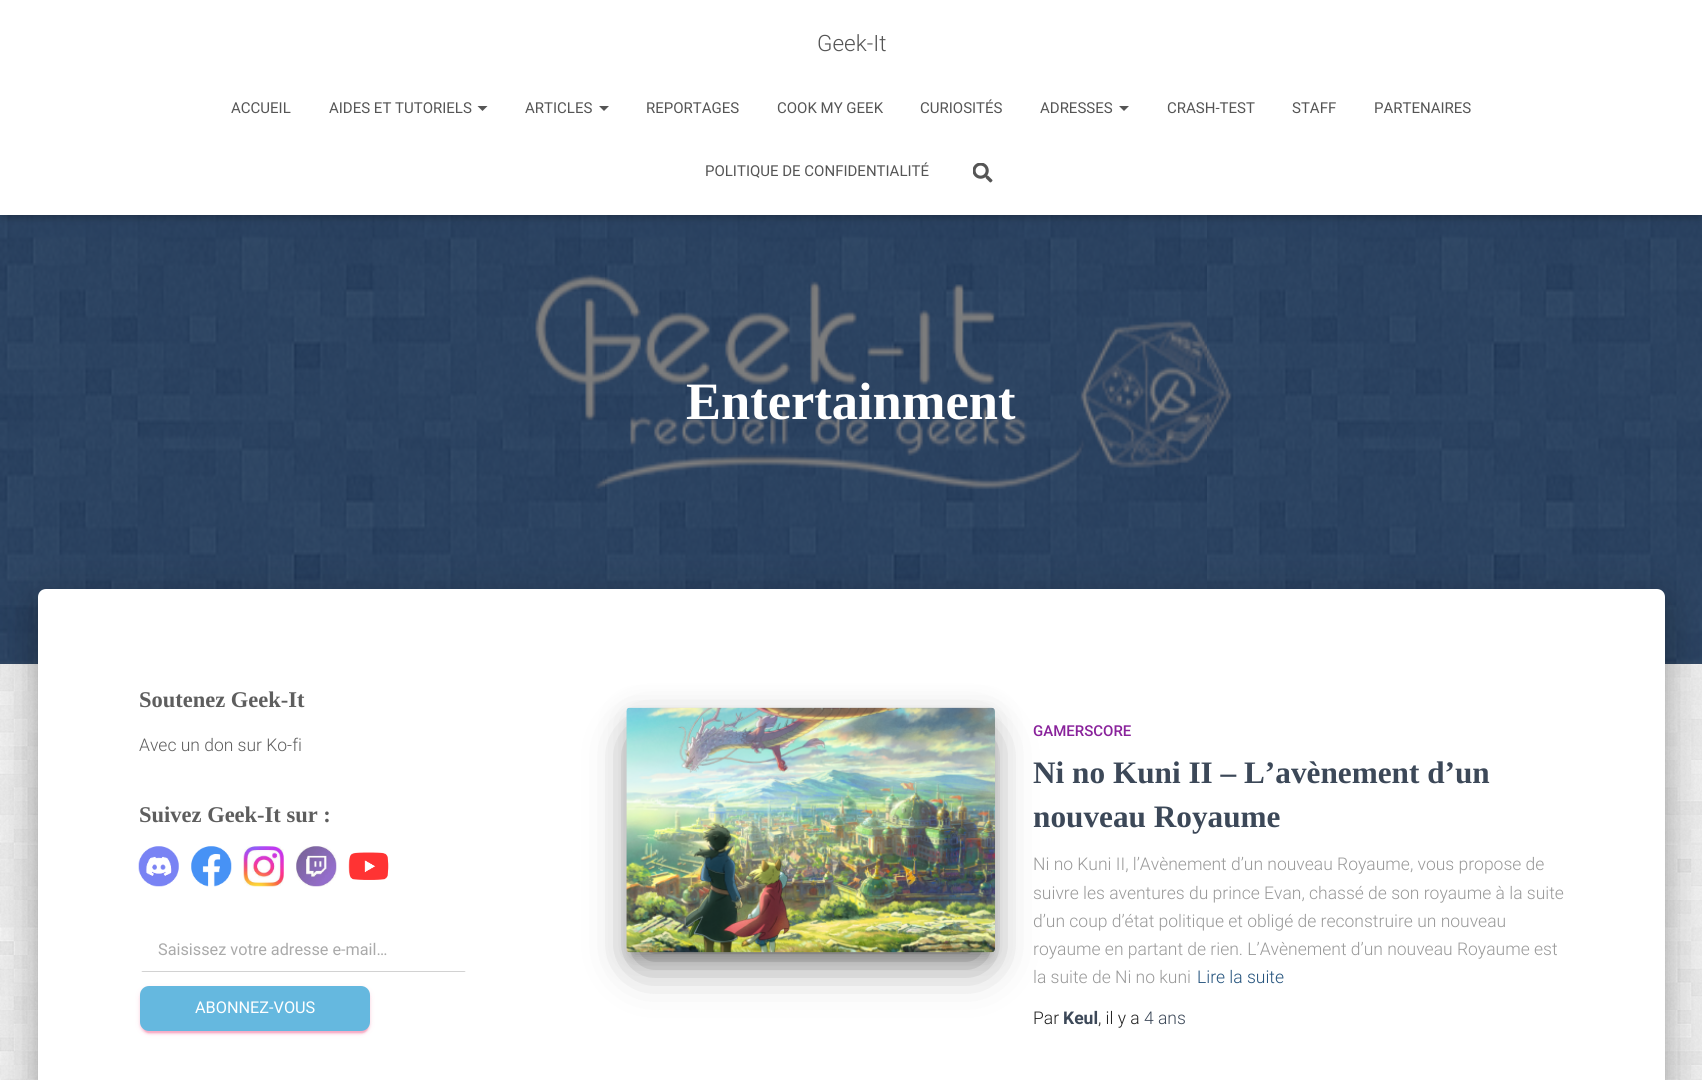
import math
import cairo


def round_path(ctx, x, y, w, h, r):
	ctx.new_sub_path()
	for i, (u, v) in enumerate([(x + w - r, y + h - r), (x + r, y + h - r), (x + r, y + r), (x + w - r, y + r)]):
		ctx.arc(u, v, r, i * math.pi / 2, (i + 1) * math.pi / 2)
	ctx.close_path()

def blur_box(ctx, x, y, w, h, r, blur, alpha):
	ctx.push_group_with_content(cairo.CONTENT_ALPHA)
	ctx.set_operator(cairo.OPERATOR_SOURCE)
	for i in range(15, -16, -2):
		e = blur * i / 6
		if min(w, h) + 2 * e > 0:
			ctx.set_source_rgba(0, 0, 0, alpha * math.erfc((i - 1) / 8.5) / 2)
			round_path(ctx, x - e, y - e, w + 2 * e, h + 2 * e, max(0, min(r + e + blur * .6, min(w, h) / 2 + e)))
			ctx.fill()
	ctx.mask(ctx.pop_group())

def paste(ctx, path, x, y, w, h):
	ctx.save()
	ctx.set_source_surface(cairo.ImageSurface.create_from_png(path), x, y)
	ctx.rectangle(x, y, w, h)
	ctx.fill()
	ctx.restore()

def draw(ctx):
	ctx.set_source_rgb(1, 1, 1)
	ctx.paint()
	paste(ctx, 'media/1.png', 0, 661, 1702, 419)
	paste(ctx, 'media/3.png', 0, 215, 1702, 449)
	ctx.set_source_rgba(0, 0, 0, 0.5)
	ctx.rectangle(0, 215, 1702, 449)
	ctx.fill()
	ctx.set_source_rgb(0, 0, 0)
	blur_box(ctx, 3, 8, 1697, 210, 0, 3, 0.1)
	blur_box(ctx, 0, 1, 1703, 215, 0, 6, 0.12)
	blur_box(ctx, 8, 9, 1687, 200, 0, 6, 0.42)
	ctx.set_source_rgb(1, 1, 1)
	ctx.rectangle(0, 0, 1702, 215)
	ctx.fill()
	ctx.select_font_face('Roboto Light')
	ctx.set_font_size(22.5)
	ctx.set_source_rgb(0.333, 0.333, 0.333)
	ctx.move_to(817, 51)
	ctx.show_text('Geek-It')
	ctx.select_font_face('Roboto')
	ctx.set_font_size(15)
	ctx.move_to(231, 113)
	ctx.show_text('ACCUEIL')
	ctx.move_to(329, 113)
	ctx.show_text('AIDES ET TUTORIELS')
	ctx.new_path()
	ctx.move_to(477.5, 106)
	ctx.line_to(487.5, 106)
	ctx.line_to(482.5, 111)
	ctx.close_path()
	ctx.fill()
	ctx.move_to(525, 113)
	ctx.show_text('ARTICLES')
	ctx.new_path()
	ctx.move_to(599, 106)
	ctx.line_to(609, 106)
	ctx.line_to(604, 111)
	ctx.close_path()
	ctx.fill()
	for x, y, s in [
		(646, 113, 'REPORTAGES'),
		(777, 113, 'COOK MY GEEK'),
		(920, 113, 'CURIOSITÉS'),
		(1040, 113, 'ADRESSES'),
	]:
		ctx.move_to(x, y)
		ctx.show_text(s)
	ctx.new_path()
	ctx.move_to(1119, 106)
	ctx.line_to(1129, 106)
	ctx.line_to(1124, 111)
	ctx.close_path()
	ctx.fill()
	for x, y, s in [
		(1167, 113, 'CRASH-TEST'),
		(1292, 113, 'STAFF'),
		(1374, 113, 'PARTENAIRES'),
		(705, 176, 'POLITIQUE DE CONFIDENTIALITÉ'),
	]:
		ctx.move_to(x, y)
		ctx.show_text(s)
	paste(ctx, 'media/2.png', 973, 163, 20, 20)
	ctx.select_font_face('Liberation Serif', cairo.FONT_SLANT_NORMAL, cairo.FONT_WEIGHT_BOLD)
	ctx.set_font_size(52.5)
	ctx.set_source_rgb(1, 1, 1)
	ctx.move_to(686, 419)
	ctx.show_text('Entertainment')
	ctx.set_source_rgb(0, 0, 0)
	blur_box(ctx, 44, 605, 1615, 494, 1, 6, 0.2)
	blur_box(ctx, 31, 590, 1640, 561, 14, 19, 0.12)
	blur_box(ctx, 35, 606, 1633, 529, 10, 15, 0.14)
	ctx.set_source_rgb(1, 1, 1)
	ctx.new_path()
	ctx.move_to(46, 589)
	ctx.line_to(1657, 589)
	ctx.curve_to(1661.5, 589, 1665, 592.5, 1665, 597)
	ctx.line_to(1665, 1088)
	ctx.line_to(38, 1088)
	ctx.line_to(38, 597)
	ctx.curve_to(38, 592.5, 41.5, 589, 46, 589)
	ctx.close_path()
	ctx.fill()
	ctx.set_font_size(22.5)
	ctx.set_source_rgb(0.369, 0.369, 0.369)
	ctx.move_to(139, 707)
	ctx.show_text('Soutenez Geek-It')
	ctx.select_font_face('Roboto Light')
	ctx.set_font_size(17.5)
	ctx.move_to(139, 751)
	ctx.show_text('Avec un don sur Ko-fi')
	ctx.select_font_face('Liberation Serif', cairo.FONT_SLANT_NORMAL, cairo.FONT_WEIGHT_BOLD)
	ctx.set_font_size(22.5)
	ctx.move_to(139, 822)
	ctx.show_text('Suivez Geek-It sur :')
	paste(ctx, 'media/4.png', 138, 846, 41, 41)
	paste(ctx, 'media/5.png', 191, 846, 41, 41)
	paste(ctx, 'media/6.png', 243, 846, 41, 41)
	paste(ctx, 'media/7.png', 296, 846, 41, 41)
	paste(ctx, 'media/8.png', 348, 852, 41, 28)
	ctx.save()
	round_path(ctx, 139, 928, 329, 46, 9)
	ctx.clip()
	ctx.set_source_rgb(0.824, 0.824, 0.824)
	ctx.rectangle(139, 971, 329, 1)
	ctx.fill()
	ctx.restore()
	ctx.select_font_face('Roboto')
	ctx.set_font_size(16.25)
	ctx.set_source_rgb(0.667, 0.667, 0.667)
	ctx.move_to(158, 955)
	ctx.show_text('Saisissez votre adresse e-mail…')
	ctx.set_source_rgb(0.914, 0.118, 0.388)
	blur_box(ctx, 140, 988, 230, 45, 9, 3, 0.12)
	blur_box(ctx, 143, 993, 225, 40, 6, 0.5, 0.2)
	blur_box(ctx, 140, 989, 230, 45, 9, 1, 0.14)
	ctx.set_source_rgb(0.396, 0.722, 0.875)
	round_path(ctx, 140, 986, 230, 45, 9)
	ctx.fill()
	ctx.set_source_rgb(1, 1, 1)
	ctx.move_to(195, 1013)
	ctx.show_text('ABONNEZ-VOUS')
	ctx.set_source_rgb(0, 0, 0)
	blur_box(ctx, 633, 724, 356, 232, 0, 6, 0.2)
	blur_box(ctx, 626, 713, 369, 245, 4, 15.5, 0.12)
	blur_box(ctx, 641, 743, 339, 215, 0, 24, 0.56)
	paste(ctx, 'media/9.png', 626, 707, 369, 246)
	ctx.select_font_face('Roboto Medium')
	ctx.set_font_size(15)
	ctx.set_source_rgb(0.537, 0.133, 0.608)
	ctx.move_to(1033, 736)
	ctx.show_text('GAMERSCORE')
	ctx.select_font_face('Liberation Serif', cairo.FONT_SLANT_NORMAL, cairo.FONT_WEIGHT_BOLD)
	ctx.set_font_size(31.25)
	ctx.set_source_rgb(0.235, 0.282, 0.345)
	ctx.move_to(1033, 783)
	ctx.show_text('Ni no Kuni II – L’avènement d’un')
	ctx.move_to(1033, 827)
	ctx.show_text('nouveau Royaume')
	ctx.select_font_face('Roboto Light')
	ctx.set_font_size(17.5)
	ctx.set_source_rgb(0.6, 0.6, 0.6)
	for x, y, s in [
		(1033, 870, 'Ni no Kuni II, l’Avènement d’un nouveau Royaume, vous propose de'),
		(1033, 899, 'suivre les aventures du prince Evan, chassé de son royaume à la suite'),
		(1033, 927, 'd’un coup d’état politique et obligé de reconstruire un nouveau'),
		(1033, 955, 'royaume en partant de rien. L’Avènement d’un nouveau Royaume est'),
		(1033, 983, 'la suite de Ni no kuni'),
	]:
		ctx.move_to(x, y)
		ctx.show_text(s)
	ctx.set_source_rgb(0.137, 0.322, 0.486)
	ctx.move_to(1197, 983)
	ctx.show_text('Lire la suite')
	ctx.set_source_rgb(0.129, 0.129, 0.129)
	ctx.move_to(1033, 1024)
	ctx.show_text('Par')
	ctx.select_font_face('Roboto', cairo.FONT_SLANT_NORMAL, cairo.FONT_WEIGHT_BOLD)
	ctx.set_source_rgb(0.235, 0.282, 0.345)
	ctx.move_to(1063, 1024)
	ctx.show_text('Keul')
	ctx.select_font_face('Roboto Light')
	ctx.set_source_rgb(0.129, 0.129, 0.129)
	ctx.move_to(1098, 1024)
	ctx.show_text(', il y a')
	ctx.set_source_rgb(0.235, 0.282, 0.345)
	ctx.move_to(1144, 1024)
	ctx.show_text('4 ans')


surface = cairo.ImageSurface(cairo.FORMAT_RGB24, 1702, 1080)
ctx = cairo.Context(surface)
options = cairo.FontOptions()
options.set_hint_metrics(cairo.HINT_METRICS_OFF)
options.set_hint_style(cairo.HINT_STYLE_NONE)
ctx.set_font_options(options)
ctx.set_miter_limit(4)
draw(ctx)
surface.write_to_png('image.png')
